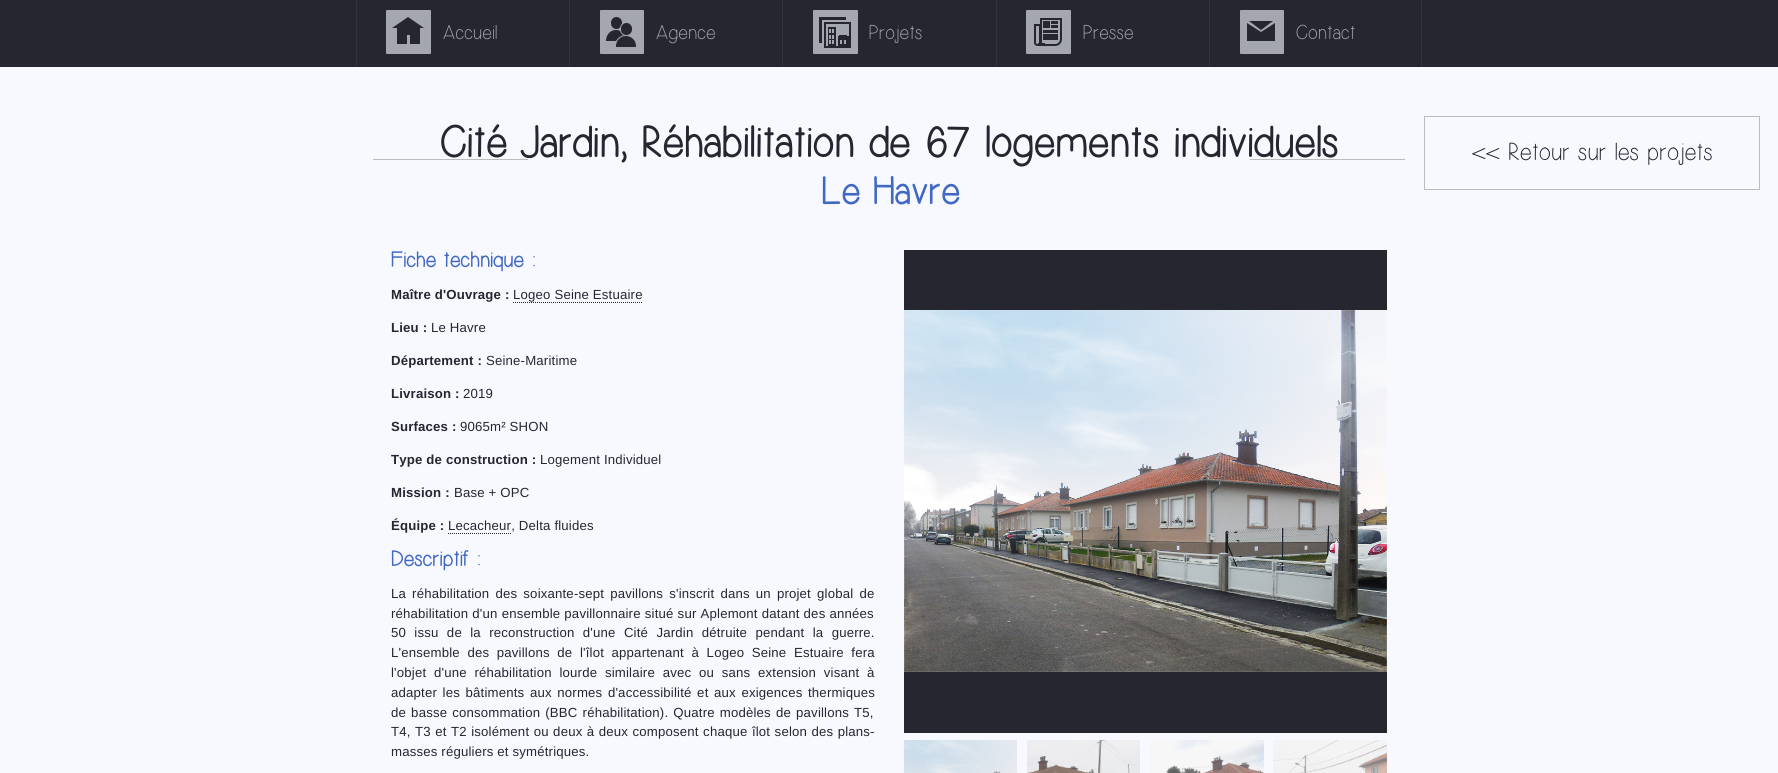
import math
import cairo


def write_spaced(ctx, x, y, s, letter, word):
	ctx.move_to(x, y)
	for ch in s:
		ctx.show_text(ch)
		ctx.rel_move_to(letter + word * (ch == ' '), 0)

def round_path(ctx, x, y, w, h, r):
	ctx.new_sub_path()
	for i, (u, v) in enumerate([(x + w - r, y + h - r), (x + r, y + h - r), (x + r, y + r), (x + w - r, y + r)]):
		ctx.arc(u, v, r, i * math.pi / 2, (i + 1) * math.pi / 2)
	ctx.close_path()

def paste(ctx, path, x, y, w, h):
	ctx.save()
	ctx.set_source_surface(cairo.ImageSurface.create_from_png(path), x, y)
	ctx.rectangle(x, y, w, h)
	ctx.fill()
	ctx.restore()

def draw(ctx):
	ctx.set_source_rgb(0.969, 0.973, 0.996)
	ctx.paint()
	ctx.set_source_rgb(0.145, 0.149, 0.188)
	ctx.rectangle(0, 0, 1778, 67)
	ctx.fill()
	ctx.set_source_rgb(0.196, 0.2, 0.251)
	ctx.rectangle(356, 0, 1, 67)
	ctx.fill()
	ctx.set_source_rgb(0.647, 0.655, 0.69)
	round_path(ctx, 386, 10, 45, 44, 1)
	ctx.fill()
	ctx.set_source_rgb(0.145, 0.149, 0.188)
	ctx.rectangle(407, 28, 3, 7)
	ctx.rectangle(410, 28, 10, 16)
	ctx.rectangle(397, 28, 10, 16)
	ctx.fill()
	ctx.new_path()
	ctx.move_to(424, 28)
	ctx.line_to(392, 28)
	ctx.line_to(408, 17)
	ctx.close_path()
	ctx.fill()
	ctx.select_font_face('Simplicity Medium')
	ctx.set_font_size(20)
	ctx.set_source_rgb(0.647, 0.655, 0.69)
	write_spaced(ctx, 443, 39, 'Accueil', 0.5, 0)
	ctx.set_source_rgb(0.196, 0.2, 0.251)
	ctx.rectangle(569, 0, 1, 67)
	ctx.fill()
	ctx.set_source_rgb(0.647, 0.655, 0.69)
	round_path(ctx, 600, 10, 44, 44, 1)
	ctx.fill()
	ctx.set_source_rgb(0.145, 0.149, 0.188)
	ctx.new_path()
	ctx.move_to(616, 30)
	ctx.curve_to(610, 30, 606, 35, 606, 41)
	ctx.line_to(617, 41)
	ctx.curve_to(619, 38, 621.5, 36, 625, 36)
	ctx.curve_to(623.5, 32.5, 620, 30, 616, 30)
	ctx.close_path()
	ctx.fill()
	ctx.new_path()
	ctx.move_to(626, 35.5)
	ctx.curve_to(632, 35.5, 636.5, 40, 636.5, 46)
	ctx.line_to(636.5, 47.5)
	ctx.line_to(615.5, 47.5)
	ctx.line_to(615.5, 46)
	ctx.curve_to(615.5, 40, 620, 35.5, 626, 35.5)
	ctx.close_path()
	ctx.set_source_rgb(0.647, 0.655, 0.69)
	ctx.set_line_width(1)
	ctx.stroke()
	ctx.set_source_rgb(0.145, 0.149, 0.188)
	ctx.new_path()
	ctx.move_to(626, 36)
	ctx.curve_to(631.5, 36, 636, 40.5, 636, 46)
	ctx.line_to(636, 47)
	ctx.line_to(616, 47)
	ctx.line_to(616, 46)
	ctx.curve_to(616, 40.5, 620.5, 36, 626, 36)
	ctx.close_path()
	ctx.fill()
	round_path(ctx, 611, 17, 11, 12, 5.5)
	ctx.fill()
	round_path(ctx, 620.5, 22.5, 12, 13, 6)
	ctx.set_source_rgb(0.647, 0.655, 0.69)
	ctx.stroke()
	ctx.set_source_rgb(0.145, 0.149, 0.188)
	round_path(ctx, 621, 23, 11, 12, 5.5)
	ctx.fill()
	ctx.set_source_rgb(0.647, 0.655, 0.69)
	write_spaced(ctx, 656, 39, 'Agence', 0.5, 0)
	ctx.set_source_rgb(0.196, 0.2, 0.251)
	ctx.rectangle(782, 0, 1, 67)
	ctx.fill()
	ctx.set_source_rgb(0.647, 0.655, 0.69)
	round_path(ctx, 813, 10, 45, 44, 1)
	ctx.fill()
	ctx.set_source_rgb(0.145, 0.149, 0.188)
	ctx.new_path()
	ctx.move_to(819, 17)
	ctx.line_to(819, 43)
	ctx.line_to(824, 43)
	ctx.line_to(824, 22)
	ctx.line_to(846, 22)
	ctx.line_to(846, 17)
	ctx.close_path()
	ctx.fill()
	ctx.set_source_rgb(0.647, 0.655, 0.69)
	ctx.new_path()
	ctx.move_to(822, 20)
	ctx.line_to(822, 46)
	ctx.line_to(824, 46)
	ctx.line_to(824, 22)
	ctx.line_to(849, 22)
	ctx.line_to(849, 20)
	ctx.close_path()
	ctx.fill()
	ctx.rectangle(825, 23, 25, 24)
	ctx.set_source_rgb(0.145, 0.149, 0.188)
	ctx.set_line_width(2)
	ctx.stroke()
	ctx.rectangle(839, 35, 8, 1)
	ctx.rectangle(838, 36, 11, 10)
	ctx.rectangle(828, 27, 8, 19)
	ctx.fill()
	ctx.set_source_rgb(0.647, 0.655, 0.69)
	ctx.rectangle(844, 40, 2, 4)
	ctx.rectangle(840, 40, 2, 4)
	ctx.rectangle(832, 40, 2, 4)
	ctx.rectangle(829, 40, 2, 4)
	ctx.rectangle(832, 35, 2, 4)
	ctx.rectangle(829, 35, 2, 4)
	ctx.rectangle(832, 29, 2, 4)
	ctx.rectangle(829, 29, 2, 4)
	ctx.fill()
	write_spaced(ctx, 869, 39, 'Projets', 0.5, 0)
	ctx.set_source_rgb(0.196, 0.2, 0.251)
	ctx.rectangle(996, 0, 1, 67)
	ctx.fill()
	ctx.set_source_rgb(0.647, 0.655, 0.69)
	round_path(ctx, 1026, 10, 45, 44, 1)
	ctx.fill()
	ctx.new_path()
	ctx.move_to(1041, 19)
	ctx.line_to(1061, 19)
	ctx.line_to(1061, 39)
	ctx.curve_to(1061, 42.5, 1058.5, 45, 1055, 45)
	ctx.line_to(1041, 45)
	ctx.close_path()
	ctx.set_source_rgb(0.145, 0.149, 0.188)
	ctx.stroke()
	ctx.new_path()
	ctx.move_to(1035, 25)
	ctx.line_to(1040, 25)
	ctx.line_to(1040, 42.5)
	ctx.curve_to(1040, 44, 1039, 45, 1037.5, 45)
	ctx.curve_to(1036, 45, 1035, 44, 1035, 42.5)
	ctx.close_path()
	ctx.stroke()
	ctx.rectangle(1038, 43, 7, 3)
	ctx.rectangle(1043, 37, 15, 3)
	ctx.rectangle(1051, 34, 7, 3)
	ctx.rectangle(1043, 34, 11, 3)
	ctx.rectangle(1043, 30, 15, 3)
	ctx.rectangle(1051, 25, 7, 3)
	ctx.rectangle(1051, 21, 7, 3)
	ctx.rectangle(1043, 21, 7, 7)
	ctx.fill()
	ctx.set_source_rgb(0.647, 0.655, 0.69)
	write_spaced(ctx, 1083, 39, 'Presse', 0.5, 0)
	ctx.set_source_rgb(0.196, 0.2, 0.251)
	ctx.rectangle(1421, 0, 1, 67)
	ctx.fill()
	ctx.rectangle(1209, 0, 1, 67)
	ctx.fill()
	ctx.set_source_rgb(0.647, 0.655, 0.69)
	round_path(ctx, 1240, 10, 44, 44, 1)
	ctx.fill()
	ctx.set_source_rgb(0.145, 0.149, 0.188)
	ctx.new_path()
	ctx.move_to(1275, 23)
	ctx.line_to(1275, 41)
	ctx.line_to(1261, 32)
	ctx.close_path()
	ctx.fill()
	ctx.rectangle(1247, 32, 28, 9)
	ctx.fill()
	ctx.new_path()
	ctx.move_to(1247, 41)
	ctx.line_to(1247, 23)
	ctx.line_to(1261, 32)
	ctx.close_path()
	ctx.fill()
	ctx.new_path()
	ctx.move_to(1249, 21)
	ctx.line_to(1273, 21)
	ctx.line_to(1261, 30)
	ctx.close_path()
	ctx.fill()
	ctx.set_source_rgb(0.647, 0.655, 0.69)
	write_spaced(ctx, 1296, 39, 'Contact', 0.5, 0)
	ctx.set_source_rgb(0.737, 0.737, 0.737)
	ctx.rectangle(373, 159, 155, 1)
	ctx.fill()
	ctx.rectangle(1250, 159, 155, 1)
	ctx.fill()
	ctx.select_font_face('Simplicity', cairo.FONT_SLANT_NORMAL, cairo.FONT_WEIGHT_BOLD)
	ctx.set_font_size(43.6)
	ctx.set_source_rgb(0.145, 0.149, 0.188)
	write_spaced(ctx, 440, 157, 'Cité Jardin, Réhabilitation de 67 logements individuels', 1.3, 0)
	ctx.set_font_size(38.5)
	ctx.set_source_rgb(0.255, 0.412, 0.769)
	write_spaced(ctx, 820, 204, 'Le Havre', 1.25, 0)
	ctx.set_font_size(21.75)
	write_spaced(ctx, 391, 267, 'Fiche technique :', 0.6, 0)
	ctx.select_font_face('Liberation Sans', cairo.FONT_SLANT_NORMAL, cairo.FONT_WEIGHT_BOLD)
	ctx.set_font_size(13.2)
	ctx.set_source_rgb(0.145, 0.149, 0.188)
	write_spaced(ctx, 391, 299, 'Maître d\'Ouvrage :', 0.17, 0)
	ctx.select_font_face('Liberation Sans')
	write_spaced(ctx, 513, 299, 'Logeo Seine Estuaire', 0.17, 0)
	ctx.new_path()
	ctx.move_to(513, 302.5)
	ctx.line_to(643, 302.5)
	ctx.set_line_width(1)
	ctx.set_dash([1, 1])
	ctx.stroke()
	ctx.select_font_face('Liberation Sans', cairo.FONT_SLANT_NORMAL, cairo.FONT_WEIGHT_BOLD)
	write_spaced(ctx, 391, 332, 'Lieu :', 0.17, 0)
	ctx.select_font_face('Liberation Sans')
	write_spaced(ctx, 431, 332, 'Le Havre', 0.17, 0)
	ctx.select_font_face('Liberation Sans', cairo.FONT_SLANT_NORMAL, cairo.FONT_WEIGHT_BOLD)
	write_spaced(ctx, 391, 365, 'Département :', 0.17, 0)
	ctx.select_font_face('Liberation Sans')
	write_spaced(ctx, 486, 365, 'Seine-Maritime', 0.17, 0)
	ctx.select_font_face('Liberation Sans', cairo.FONT_SLANT_NORMAL, cairo.FONT_WEIGHT_BOLD)
	write_spaced(ctx, 391, 398, 'Livraison :', 0.17, 0)
	ctx.select_font_face('Liberation Sans')
	write_spaced(ctx, 463, 398, '2019', 0.17, 0)
	ctx.select_font_face('Liberation Sans', cairo.FONT_SLANT_NORMAL, cairo.FONT_WEIGHT_BOLD)
	write_spaced(ctx, 391, 431, 'Surfaces :', 0.17, 0)
	ctx.select_font_face('Liberation Sans')
	write_spaced(ctx, 460, 431, '9065m² SHON', 0.17, 0)
	ctx.select_font_face('Liberation Sans', cairo.FONT_SLANT_NORMAL, cairo.FONT_WEIGHT_BOLD)
	write_spaced(ctx, 391, 464, 'Type de construction :', 0.17, 0)
	ctx.select_font_face('Liberation Sans')
	write_spaced(ctx, 540, 464, 'Logement Individuel', 0.17, 0)
	ctx.select_font_face('Liberation Sans', cairo.FONT_SLANT_NORMAL, cairo.FONT_WEIGHT_BOLD)
	write_spaced(ctx, 391, 497, 'Mission :', 0.17, 0)
	ctx.select_font_face('Liberation Sans')
	write_spaced(ctx, 454, 497, 'Base + OPC', 0.17, 0)
	ctx.select_font_face('Liberation Sans', cairo.FONT_SLANT_NORMAL, cairo.FONT_WEIGHT_BOLD)
	write_spaced(ctx, 391, 530, 'Équipe :', 0.17, 0)
	ctx.select_font_face('Liberation Sans')
	write_spaced(ctx, 448, 530, 'Lecacheur, Delta fluides', 0.17, 0)
	ctx.new_path()
	ctx.move_to(448, 533.5)
	ctx.line_to(511, 533.5)
	ctx.stroke()
	ctx.select_font_face('Simplicity', cairo.FONT_SLANT_NORMAL, cairo.FONT_WEIGHT_BOLD)
	ctx.set_font_size(21.75)
	ctx.set_source_rgb(0.255, 0.412, 0.769)
	write_spaced(ctx, 391, 566, 'Descriptif :', 0.6, 0)
	ctx.select_font_face('Liberation Sans')
	ctx.set_font_size(13.2)
	ctx.set_source_rgb(0.145, 0.149, 0.188)
	write_spaced(ctx, 391, 598, 'La réhabilitation des soixante-sept pavillons s\'inscrit dans un projet global de', 0.17, 2.25)
	write_spaced(ctx, 391, 618, 'réhabilitation d\'un ensemble pavillonnaire situé sur Aplemont datant des années', 0.17, 0.25)
	write_spaced(ctx, 391, 637, '50 issu de la reconstruction d\'une Cité Jardin détruite pendant la guerre.', 0.17, 4.5)
	write_spaced(ctx, 391, 657, 'L\'ensemble des pavillons de l\'îlot appartenant à Logeo Seine Estuaire fera', 0.17, 3.75)
	write_spaced(ctx, 391, 677, 'l\'objet d\'une réhabilitation lourde similaire avec ou sans extension visant à', 0.17, 3.9)
	write_spaced(ctx, 391, 697, 'adapter les bâtiments aux normes d\'accessibilité et aux exigences thermiques', 0.17, 1.75)
	write_spaced(ctx, 391, 717, 'de basse consommation (BBC réhabilitation). Quatre modèles de pavillons T5,', 0.17, 1.25)
	write_spaced(ctx, 391, 736, 'T4, T3 et T2 isolément ou deux à deux composent chaque îlot selon des plans-', 0.17, 0.6)
	write_spaced(ctx, 391, 756, 'masses réguliers et symétriques.', 0.17, 0)
	ctx.rectangle(904, 250, 483, 483)
	ctx.fill()
	paste(ctx, 'media/1.png', 904, 310, 483, 362)
	paste(ctx, 'media/2.png', 904, 740, 113, 33)
	paste(ctx, 'media/3.png', 1027, 740, 113, 33)
	paste(ctx, 'media/4.png', 1150, 740, 114, 33)
	paste(ctx, 'media/5.png', 1273, 740, 114, 33)
	ctx.rectangle(1424.5, 116.5, 335, 73)
	ctx.set_source_rgb(0.737, 0.737, 0.737)
	ctx.set_dash([])
	ctx.stroke()
	ctx.select_font_face('Simplicity Medium')
	ctx.set_font_size(24.75)
	ctx.set_source_rgb(0.145, 0.149, 0.188)
	write_spaced(ctx, 1472, 160, '<< Retour sur les projets', 0.5, 0)


surface = cairo.ImageSurface(cairo.FORMAT_RGB24, 1778, 773)
ctx = cairo.Context(surface)
options = cairo.FontOptions()
options.set_hint_metrics(cairo.HINT_METRICS_OFF)
options.set_hint_style(cairo.HINT_STYLE_NONE)
ctx.set_font_options(options)
ctx.set_miter_limit(4)
draw(ctx)
surface.write_to_png('image.png')
